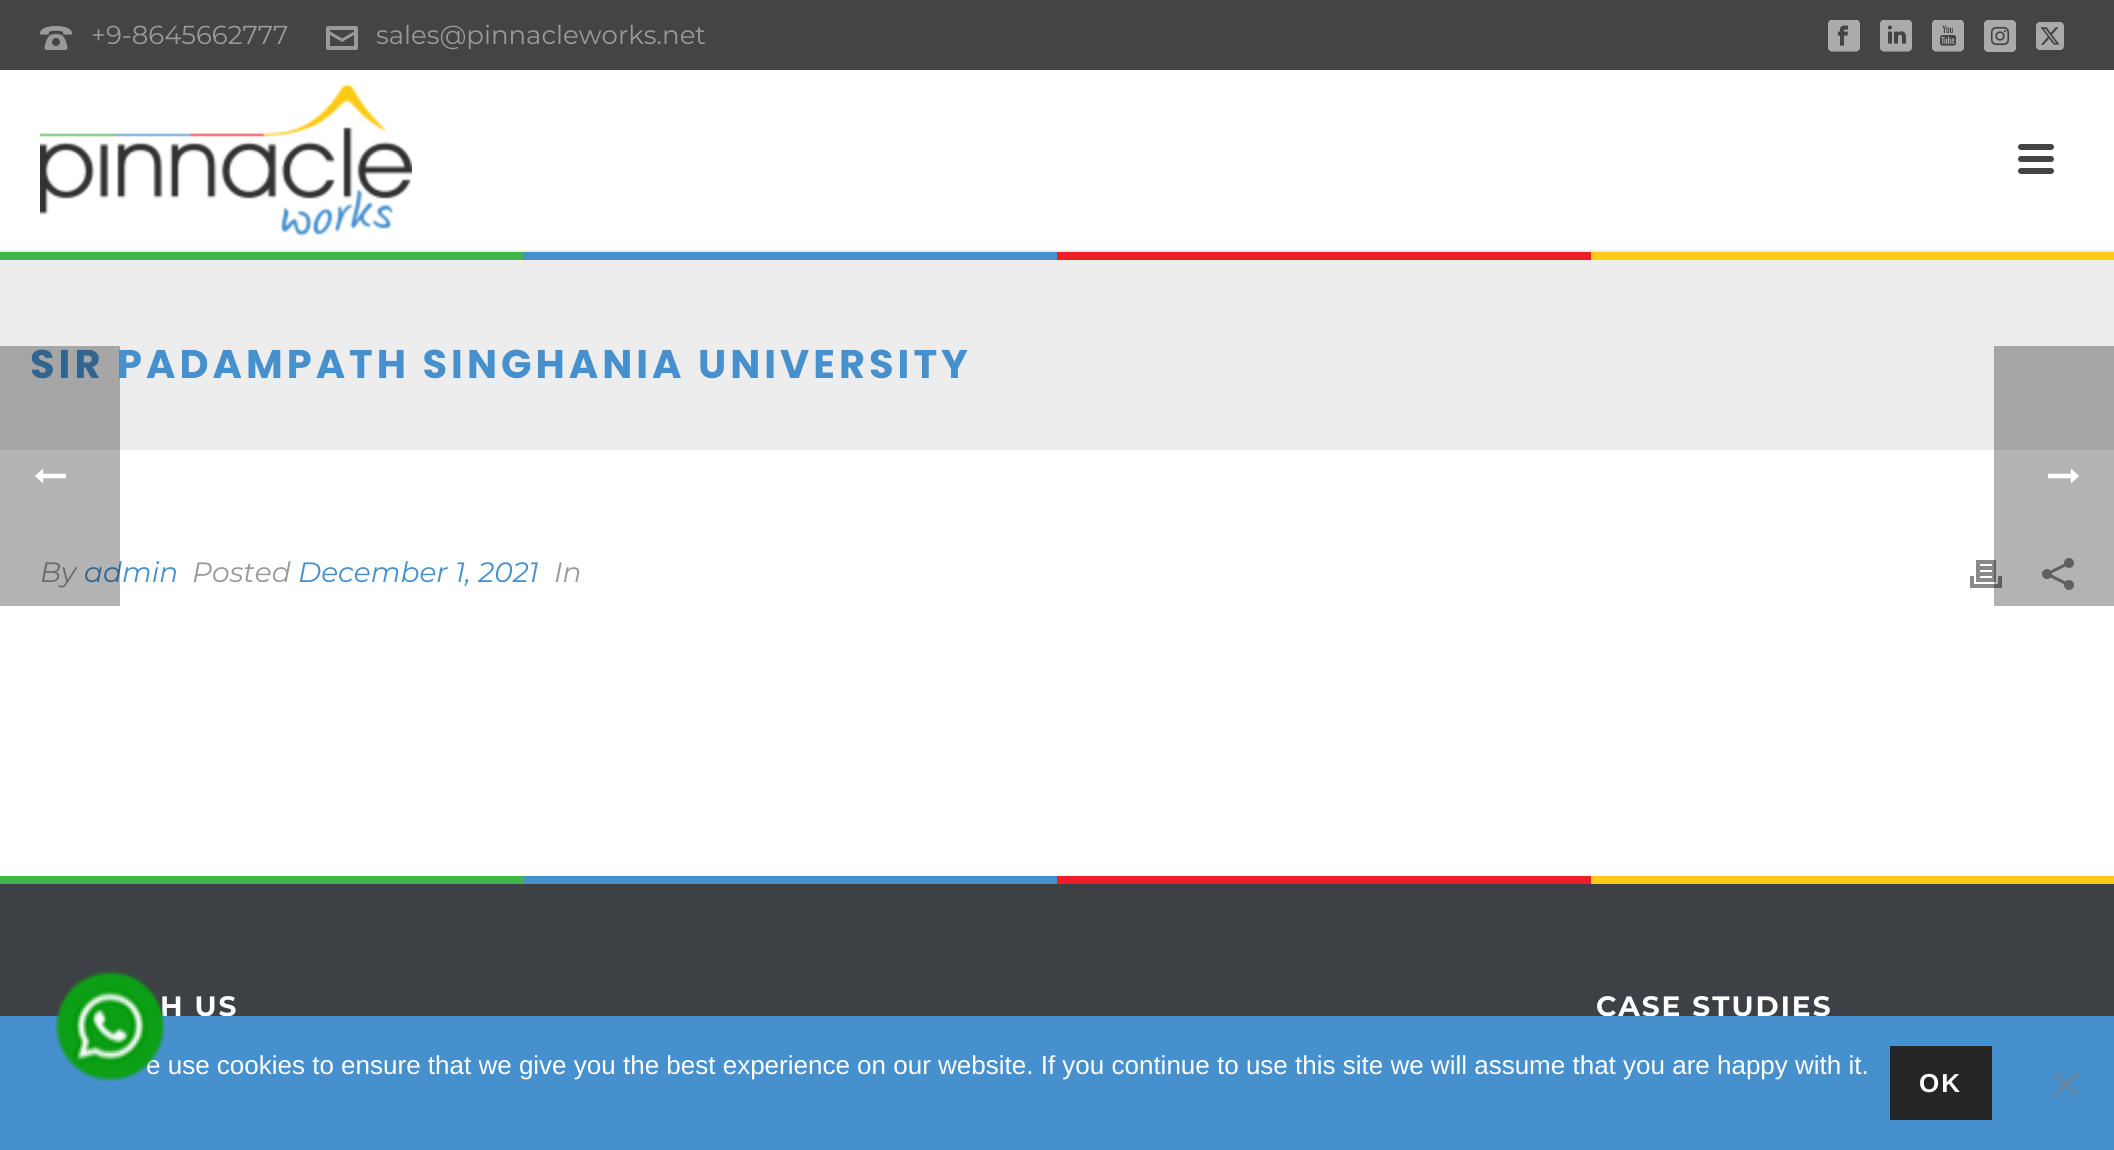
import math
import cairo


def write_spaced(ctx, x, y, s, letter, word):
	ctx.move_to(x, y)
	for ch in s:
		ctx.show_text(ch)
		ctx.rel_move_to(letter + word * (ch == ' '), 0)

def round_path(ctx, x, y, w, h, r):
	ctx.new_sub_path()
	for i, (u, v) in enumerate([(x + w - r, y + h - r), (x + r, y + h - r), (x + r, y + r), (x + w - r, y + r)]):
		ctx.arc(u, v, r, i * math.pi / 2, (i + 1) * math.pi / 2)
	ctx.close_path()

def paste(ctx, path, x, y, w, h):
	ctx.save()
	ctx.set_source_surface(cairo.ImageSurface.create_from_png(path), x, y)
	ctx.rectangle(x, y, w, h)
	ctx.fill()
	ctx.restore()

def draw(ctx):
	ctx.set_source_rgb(1, 1, 1)
	ctx.paint()
	ctx.set_source_rgb(0.929, 0.929, 0.929)
	ctx.rectangle(0, 250, 2114, 200)
	ctx.fill()
	paste(ctx, 'media/1.png', 0, 252, 2114, 8)
	ctx.set_source_rgb(0.267, 0.267, 0.267)
	ctx.rectangle(0, 0, 2114, 70)
	ctx.fill()
	paste(ctx, 'media/2.png', 40, 26, 32, 24)
	ctx.select_font_face('Montserrat')
	ctx.set_font_size(26)
	ctx.set_source_rgb(0.6, 0.6, 0.6)
	ctx.move_to(91, 44)
	ctx.show_text('+9-8645662777')
	paste(ctx, 'media/3.png', 326, 26, 32, 24)
	ctx.move_to(376, 44)
	ctx.show_text('sales@pinnacleworks.net')
	paste(ctx, 'media/4.png', 1828, 20, 32, 32)
	paste(ctx, 'media/5.png', 1880, 20, 32, 32)
	paste(ctx, 'media/6.png', 1932, 20, 32, 32)
	paste(ctx, 'media/7.png', 1984, 20, 32, 32)
	paste(ctx, 'media/8.png', 2036, 22, 28, 28)
	paste(ctx, 'media/9.png', 40, 83, 372, 154)
	ctx.set_source_rgb(0.267, 0.267, 0.267)
	round_path(ctx, 2018, 144, 36, 6, 3)
	ctx.fill()
	round_path(ctx, 2018, 156, 36, 6, 3)
	ctx.fill()
	round_path(ctx, 2018, 168, 36, 6, 3)
	ctx.fill()
	ctx.select_font_face('Poppins', cairo.FONT_SLANT_NORMAL, cairo.FONT_WEIGHT_BOLD)
	ctx.set_font_size(40)
	ctx.set_source_rgb(0.275, 0.565, 0.804)
	write_spaced(ctx, 30, 378, 'SIR PADAMPATH SINGHANIA UNIVERSITY', 4, 0)
	ctx.select_font_face('Montserrat', cairo.FONT_SLANT_ITALIC)
	ctx.set_font_size(28)
	ctx.set_source_rgb(0.6, 0.6, 0.6)
	ctx.move_to(40, 582)
	ctx.show_text('By')
	ctx.set_source_rgb(0.275, 0.565, 0.804)
	ctx.move_to(84, 582)
	ctx.show_text('admin')
	ctx.set_source_rgb(0.6, 0.6, 0.6)
	ctx.move_to(192, 582)
	ctx.show_text('Posted')
	ctx.set_source_rgb(0.275, 0.565, 0.804)
	ctx.move_to(298, 582)
	ctx.show_text('December 1, 2021')
	ctx.set_source_rgb(0.6, 0.6, 0.6)
	ctx.move_to(554, 582)
	ctx.show_text('In')
	paste(ctx, 'media/10.png', 1970, 560, 32, 28)
	paste(ctx, 'media/11.png', 2042, 558, 32, 32)
	ctx.set_source_rgb(0.239, 0.251, 0.271)
	ctx.rectangle(0, 884, 2114, 132)
	ctx.fill()
	paste(ctx, 'media/1.png', 0, 876, 2114, 8)
	ctx.select_font_face('Montserrat', cairo.FONT_SLANT_NORMAL, cairo.FONT_WEIGHT_BOLD)
	ctx.set_source_rgb(1, 1, 1)
	write_spaced(ctx, 160, 1016, 'H US', 2, 0)
	write_spaced(ctx, 1596, 1016, 'CASE STUDIES', 2, 0)
	ctx.set_source_rgba(0, 0, 0, 0.3)
	ctx.rectangle(0, 346, 120, 260)
	ctx.fill()
	paste(ctx, 'media/12.png', 35, 469, 31, 14)
	ctx.rectangle(1994, 346, 120, 260)
	ctx.fill()
	paste(ctx, 'media/13.png', 2048, 469, 31, 14)
	ctx.set_source_rgb(0.275, 0.565, 0.804)
	ctx.rectangle(0, 1016, 2114, 134)
	ctx.fill()
	ctx.select_font_face('Liberation Sans')
	ctx.set_font_size(26)
	ctx.set_source_rgb(1, 1, 1)
	ctx.move_to(146, 1074)
	ctx.show_text('e use cookies to ensure that we give you the best experience on our website. If you continue to use this site we will assume that you are happy with it.')
	paste(ctx, 'media/14.png', 55, 970, 110, 111)
	ctx.set_source_rgb(0.145, 0.145, 0.145)
	ctx.rectangle(1890, 1046, 102, 74)
	ctx.fill()
	ctx.select_font_face('Liberation Sans', cairo.FONT_SLANT_NORMAL, cairo.FONT_WEIGHT_BOLD)
	ctx.set_source_rgb(1, 1, 1)
	write_spaced(ctx, 1919, 1092, 'OK', 2, 0)
	ctx.set_source_rgb(0.388, 0.533, 0.655)
	ctx.new_path()
	ctx.move_to(2075, 1072)
	ctx.line_to(2078, 1075)
	ctx.line_to(2057, 1096)
	ctx.line_to(2054, 1093)
	ctx.close_path()
	ctx.fill()
	ctx.new_path()
	ctx.move_to(2054, 1075)
	ctx.line_to(2057, 1072)
	ctx.line_to(2078, 1093)
	ctx.line_to(2075, 1096)
	ctx.close_path()
	ctx.fill()


surface = cairo.ImageSurface(cairo.FORMAT_RGB24, 2114, 1150)
ctx = cairo.Context(surface)
options = cairo.FontOptions()
options.set_hint_metrics(cairo.HINT_METRICS_OFF)
options.set_hint_style(cairo.HINT_STYLE_NONE)
ctx.set_font_options(options)
ctx.set_miter_limit(4)
draw(ctx)
surface.write_to_png('image.png')
